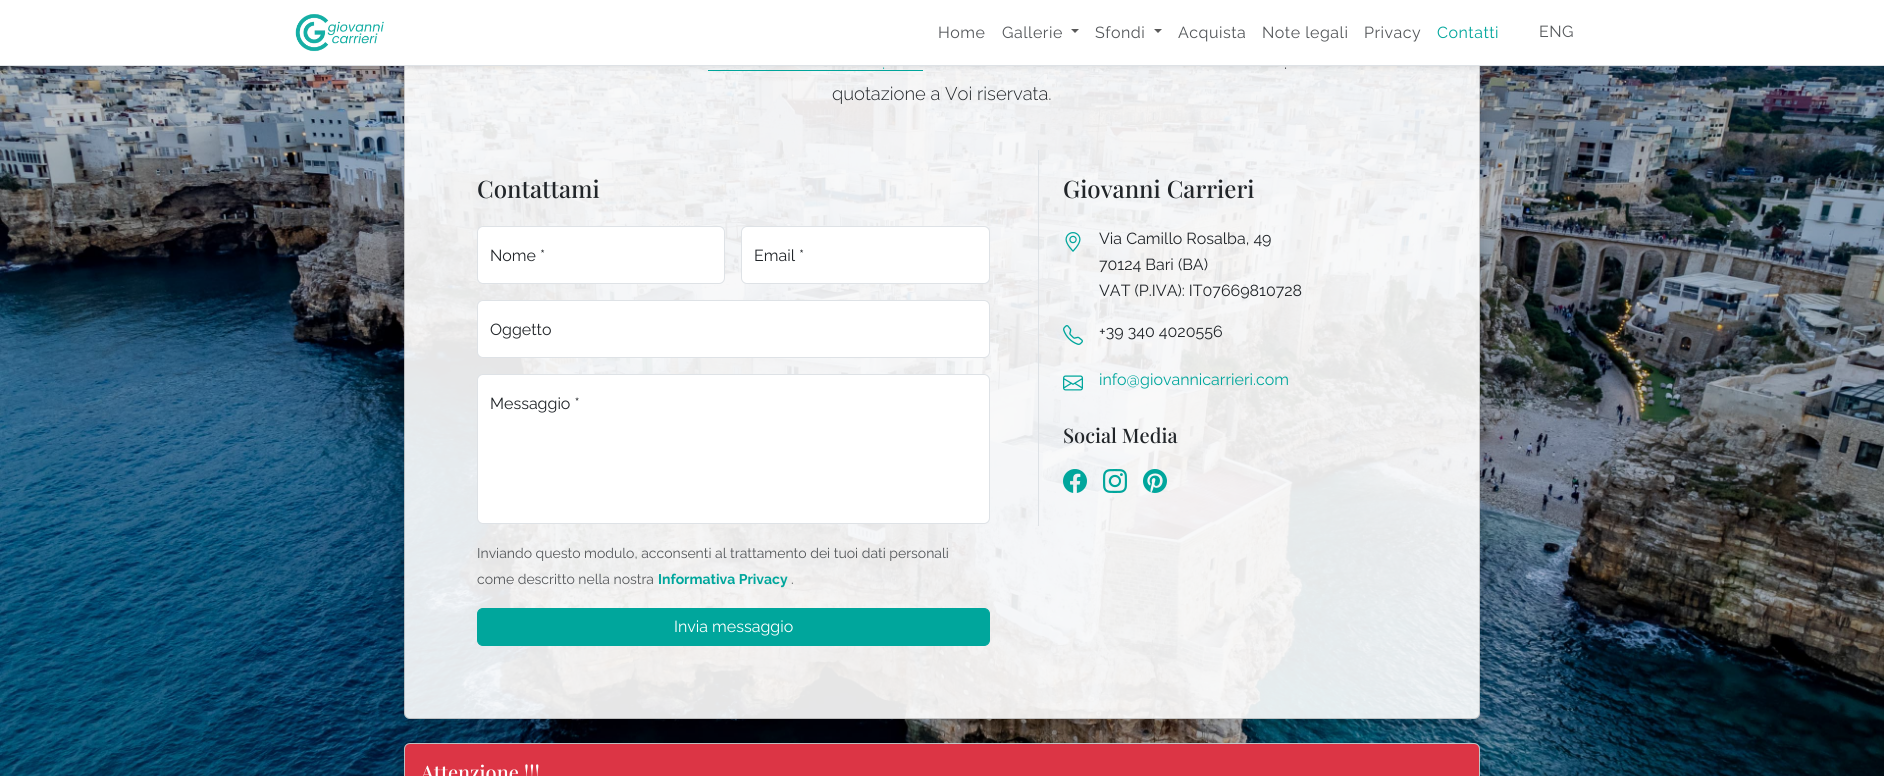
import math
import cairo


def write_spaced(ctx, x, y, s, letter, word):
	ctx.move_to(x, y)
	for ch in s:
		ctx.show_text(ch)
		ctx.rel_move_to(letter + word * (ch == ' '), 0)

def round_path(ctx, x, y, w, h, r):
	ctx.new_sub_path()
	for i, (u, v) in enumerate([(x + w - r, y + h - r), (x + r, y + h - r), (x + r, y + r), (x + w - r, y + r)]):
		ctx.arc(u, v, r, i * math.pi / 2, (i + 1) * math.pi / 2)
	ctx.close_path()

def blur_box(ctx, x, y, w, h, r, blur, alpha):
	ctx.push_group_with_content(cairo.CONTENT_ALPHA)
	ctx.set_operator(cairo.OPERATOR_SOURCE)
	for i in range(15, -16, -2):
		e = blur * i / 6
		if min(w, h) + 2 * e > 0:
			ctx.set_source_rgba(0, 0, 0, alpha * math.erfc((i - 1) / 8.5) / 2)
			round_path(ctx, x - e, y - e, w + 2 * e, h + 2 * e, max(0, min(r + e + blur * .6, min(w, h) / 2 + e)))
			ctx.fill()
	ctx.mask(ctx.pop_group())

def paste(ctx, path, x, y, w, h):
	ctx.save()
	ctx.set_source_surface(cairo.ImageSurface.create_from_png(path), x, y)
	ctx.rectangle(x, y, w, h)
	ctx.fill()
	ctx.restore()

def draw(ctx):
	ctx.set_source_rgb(1, 1, 1)
	ctx.paint()
	paste(ctx, 'media/2.png', 0, 66, 1884, 710)
	ctx.save()
	ctx.set_fill_rule(cairo.FILL_RULE_EVEN_ODD)
	ctx.new_path()
	ctx.move_to(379, 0)
	ctx.line_to(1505, 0)
	ctx.line_to(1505, 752)
	ctx.line_to(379, 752)
	ctx.close_path()
	ctx.move_to(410, -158)
	ctx.line_to(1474, -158)
	ctx.curve_to(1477.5, -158, 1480, -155.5, 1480, -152)
	ctx.line_to(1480, 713)
	ctx.curve_to(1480, 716.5, 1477.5, 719, 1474, 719)
	ctx.line_to(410, 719)
	ctx.curve_to(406.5, 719, 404, 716.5, 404, 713)
	ctx.line_to(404, -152)
	ctx.curve_to(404, -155.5, 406.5, -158, 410, -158)
	ctx.close_path()
	ctx.clip()
	ctx.set_source_rgb(0, 0, 0)
	blur_box(ctx, 404, -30, 1076, 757, 6, 8, 0.15)
	ctx.restore()
	ctx.set_source_rgba(1, 1, 1, 0.9)
	round_path(ctx, 404, -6, 1076, 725, 6)
	ctx.fill()
	round_path(ctx, 404.5, -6.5, 1075, 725, 5.5)
	ctx.set_source_rgba(0, 0, 0, 0.18)
	ctx.set_line_width(1)
	ctx.stroke()
	ctx.set_source_rgb(0, 0.651, 0.612)
	ctx.rectangle(708, 70, 215, 1)
	ctx.fill()
	ctx.set_source_rgb(0, 0, 0)
	blur_box(ctx, 0, 2, 1884, 66, 0, 2, 0.07)
	ctx.set_source_rgb(1, 1, 1)
	ctx.rectangle(0, 0, 1884, 65)
	ctx.fill()
	ctx.set_source_rgb(0.871, 0.886, 0.902)
	ctx.rectangle(0, 65, 1884, 1)
	ctx.fill()
	paste(ctx, 'media/1.png', 295, 14, 89, 38)
	ctx.select_font_face('Raleway')
	ctx.set_font_size(16)
	ctx.set_source_rgb(0.329, 0.341, 0.353)
	write_spaced(ctx, 938, 38, 'Home', 0.5, 0)
	write_spaced(ctx, 1002, 38, 'Gallerie', 0.5, 0)
	ctx.set_source_rgb(0.349, 0.349, 0.349)
	ctx.new_path()
	ctx.move_to(1071, 29)
	ctx.line_to(1079, 29)
	ctx.line_to(1075, 33)
	ctx.close_path()
	ctx.fill()
	ctx.set_source_rgb(0.329, 0.341, 0.353)
	write_spaced(ctx, 1095, 38, 'Sfondi', 0.5, 0)
	ctx.set_source_rgb(0.349, 0.349, 0.349)
	ctx.new_path()
	ctx.move_to(1154, 29)
	ctx.line_to(1162, 29)
	ctx.line_to(1158, 33)
	ctx.close_path()
	ctx.fill()
	ctx.set_source_rgb(0.329, 0.341, 0.353)
	for x, y, s in [
		(1178, 38, 'Acquista'),
		(1262, 38, 'Note legali'),
		(1364, 38, 'Privacy'),
	]:
		write_spaced(ctx, x, y, s, 0.5, 0)
	ctx.set_source_rgb(0, 0.651, 0.612)
	write_spaced(ctx, 1437, 38, 'Contatti', 0.5, 0)
	ctx.set_source_rgb(0.329, 0.341, 0.353)
	write_spaced(ctx, 1539, 37, 'ENG', 0.5, 0)
	ctx.select_font_face('Raleway Light')
	ctx.set_font_size(18.4)
	ctx.set_source_rgb(0, 0.651, 0.612)
	ctx.move_to(882, 69)
	ctx.show_text('.')
	ctx.set_source_rgb(0.129, 0.145, 0.161)
	ctx.move_to(1284, 69)
	ctx.show_text('.')
	ctx.move_to(832, 100)
	ctx.show_text('quotazione a Voi riservata.')
	ctx.select_font_face('Playfair Display Medium')
	ctx.set_font_size(24)
	ctx.move_to(477, 198)
	ctx.show_text('Contattami')
	ctx.set_source_rgb(1, 1, 1)
	round_path(ctx, 477.5, 226.5, 247, 57, 5.5)
	ctx.fill_preserve()
	ctx.set_source_rgb(0.871, 0.886, 0.902)
	ctx.stroke()
	ctx.select_font_face('Raleway')
	ctx.set_font_size(16)
	ctx.set_source_rgb(0.129, 0.145, 0.161)
	ctx.move_to(490, 261)
	ctx.show_text('Nome *')
	ctx.set_source_rgb(1, 1, 1)
	round_path(ctx, 741.5, 226.5, 248, 57, 5.5)
	ctx.fill_preserve()
	ctx.set_source_rgb(0.871, 0.886, 0.902)
	ctx.stroke()
	ctx.set_source_rgb(0.129, 0.145, 0.161)
	ctx.move_to(754, 261)
	ctx.show_text('Email *')
	ctx.set_source_rgb(1, 1, 1)
	round_path(ctx, 477.5, 300.5, 512, 57, 5.5)
	ctx.fill_preserve()
	ctx.set_source_rgb(0.871, 0.886, 0.902)
	ctx.stroke()
	ctx.set_source_rgb(0.129, 0.145, 0.161)
	ctx.move_to(490, 335)
	ctx.show_text('Oggetto')
	ctx.set_source_rgb(1, 1, 1)
	round_path(ctx, 477.5, 374.5, 512, 149, 5.5)
	ctx.fill_preserve()
	ctx.set_source_rgb(0.871, 0.886, 0.902)
	ctx.stroke()
	ctx.set_source_rgb(0.129, 0.145, 0.161)
	ctx.move_to(490, 409)
	ctx.show_text('Messaggio *')
	ctx.set_font_size(14)
	ctx.set_source_rgb(0.329, 0.341, 0.353)
	ctx.move_to(477, 558)
	ctx.show_text('Inviando questo modulo, acconsenti al trattamento dei tuoi dati personali')
	ctx.move_to(477, 584)
	ctx.show_text('come descritto nella nostra')
	ctx.select_font_face('Raleway', cairo.FONT_SLANT_NORMAL, cairo.FONT_WEIGHT_BOLD)
	ctx.set_source_rgb(0, 0.651, 0.612)
	ctx.move_to(658, 584)
	ctx.show_text('Informativa Privacy')
	ctx.select_font_face('Raleway')
	ctx.set_source_rgb(0.329, 0.341, 0.353)
	ctx.move_to(791, 584)
	ctx.show_text('.')
	ctx.set_source_rgb(0, 0.651, 0.612)
	round_path(ctx, 477.5, 608.5, 512, 37, 5.5)
	ctx.fill_preserve()
	ctx.stroke()
	ctx.set_font_size(16)
	ctx.set_source_rgb(1, 1, 1)
	ctx.move_to(674, 632)
	ctx.show_text('Invia messaggio')
	ctx.set_source_rgb(0.871, 0.886, 0.902)
	ctx.rectangle(1038, 150, 1, 376)
	ctx.fill()
	ctx.select_font_face('Playfair Display Medium')
	ctx.set_font_size(24)
	ctx.set_source_rgb(0.129, 0.145, 0.161)
	ctx.move_to(1063, 198)
	ctx.show_text('Giovanni Carrieri')
	paste(ctx, 'media/3.png', 1065, 232, 16, 20)
	ctx.select_font_face('Raleway')
	ctx.set_font_size(16)
	for x, y, s in [
		(1099, 244, 'Via Camillo Rosalba, 49'),
		(1099, 270, '70124 Bari (BA)'),
		(1099, 296, 'VAT (P.IVA): IT07669810728'),
	]:
		ctx.move_to(x, y)
		ctx.show_text(s)
	paste(ctx, 'media/4.png', 1063, 325, 20, 20)
	ctx.move_to(1099, 337)
	ctx.show_text('+39 340 4020556')
	paste(ctx, 'media/5.png', 1063, 375, 20, 16)
	ctx.set_source_rgb(0, 0.651, 0.612)
	ctx.move_to(1099, 385)
	ctx.show_text('info@giovannicarrieri.com')
	ctx.select_font_face('Playfair Display Medium')
	ctx.set_font_size(20)
	ctx.set_source_rgb(0.129, 0.145, 0.161)
	ctx.move_to(1063, 443)
	ctx.show_text('Social Media')
	paste(ctx, 'media/6.png', 1063, 469, 24, 24)
	paste(ctx, 'media/7.png', 1103, 469, 24, 24)
	paste(ctx, 'media/8.png', 1143, 469, 24, 24)
	ctx.set_source_rgb(0, 0, 0)
	blur_box(ctx, 404, 751, 1076, 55, 6, 8, 0.15)
	ctx.set_source_rgba(1, 1, 1, 0.9)
	round_path(ctx, 404, 743, 1076, 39, 6)
	ctx.fill()
	round_path(ctx, 404.5, 743.5, 1075, 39, 5.5)
	ctx.set_source_rgba(0, 0, 0, 0.18)
	ctx.stroke()
	ctx.set_source_rgb(0.863, 0.208, 0.271)
	ctx.new_path()
	ctx.move_to(410, 744)
	ctx.line_to(1474, 744)
	ctx.curve_to(1477, 744, 1479, 746, 1479, 749)
	ctx.line_to(1479, 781)
	ctx.line_to(405, 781)
	ctx.line_to(405, 749)
	ctx.curve_to(405, 746, 407, 744, 410, 744)
	ctx.close_path()
	ctx.fill()
	ctx.set_source_rgb(1, 1, 1)
	ctx.move_to(421, 780)
	ctx.show_text('Attenzione !!!')


surface = cairo.ImageSurface(cairo.FORMAT_RGB24, 1884, 776)
ctx = cairo.Context(surface)
options = cairo.FontOptions()
options.set_hint_metrics(cairo.HINT_METRICS_OFF)
options.set_hint_style(cairo.HINT_STYLE_NONE)
ctx.set_font_options(options)
ctx.set_miter_limit(4)
draw(ctx)
surface.write_to_png('image.png')
